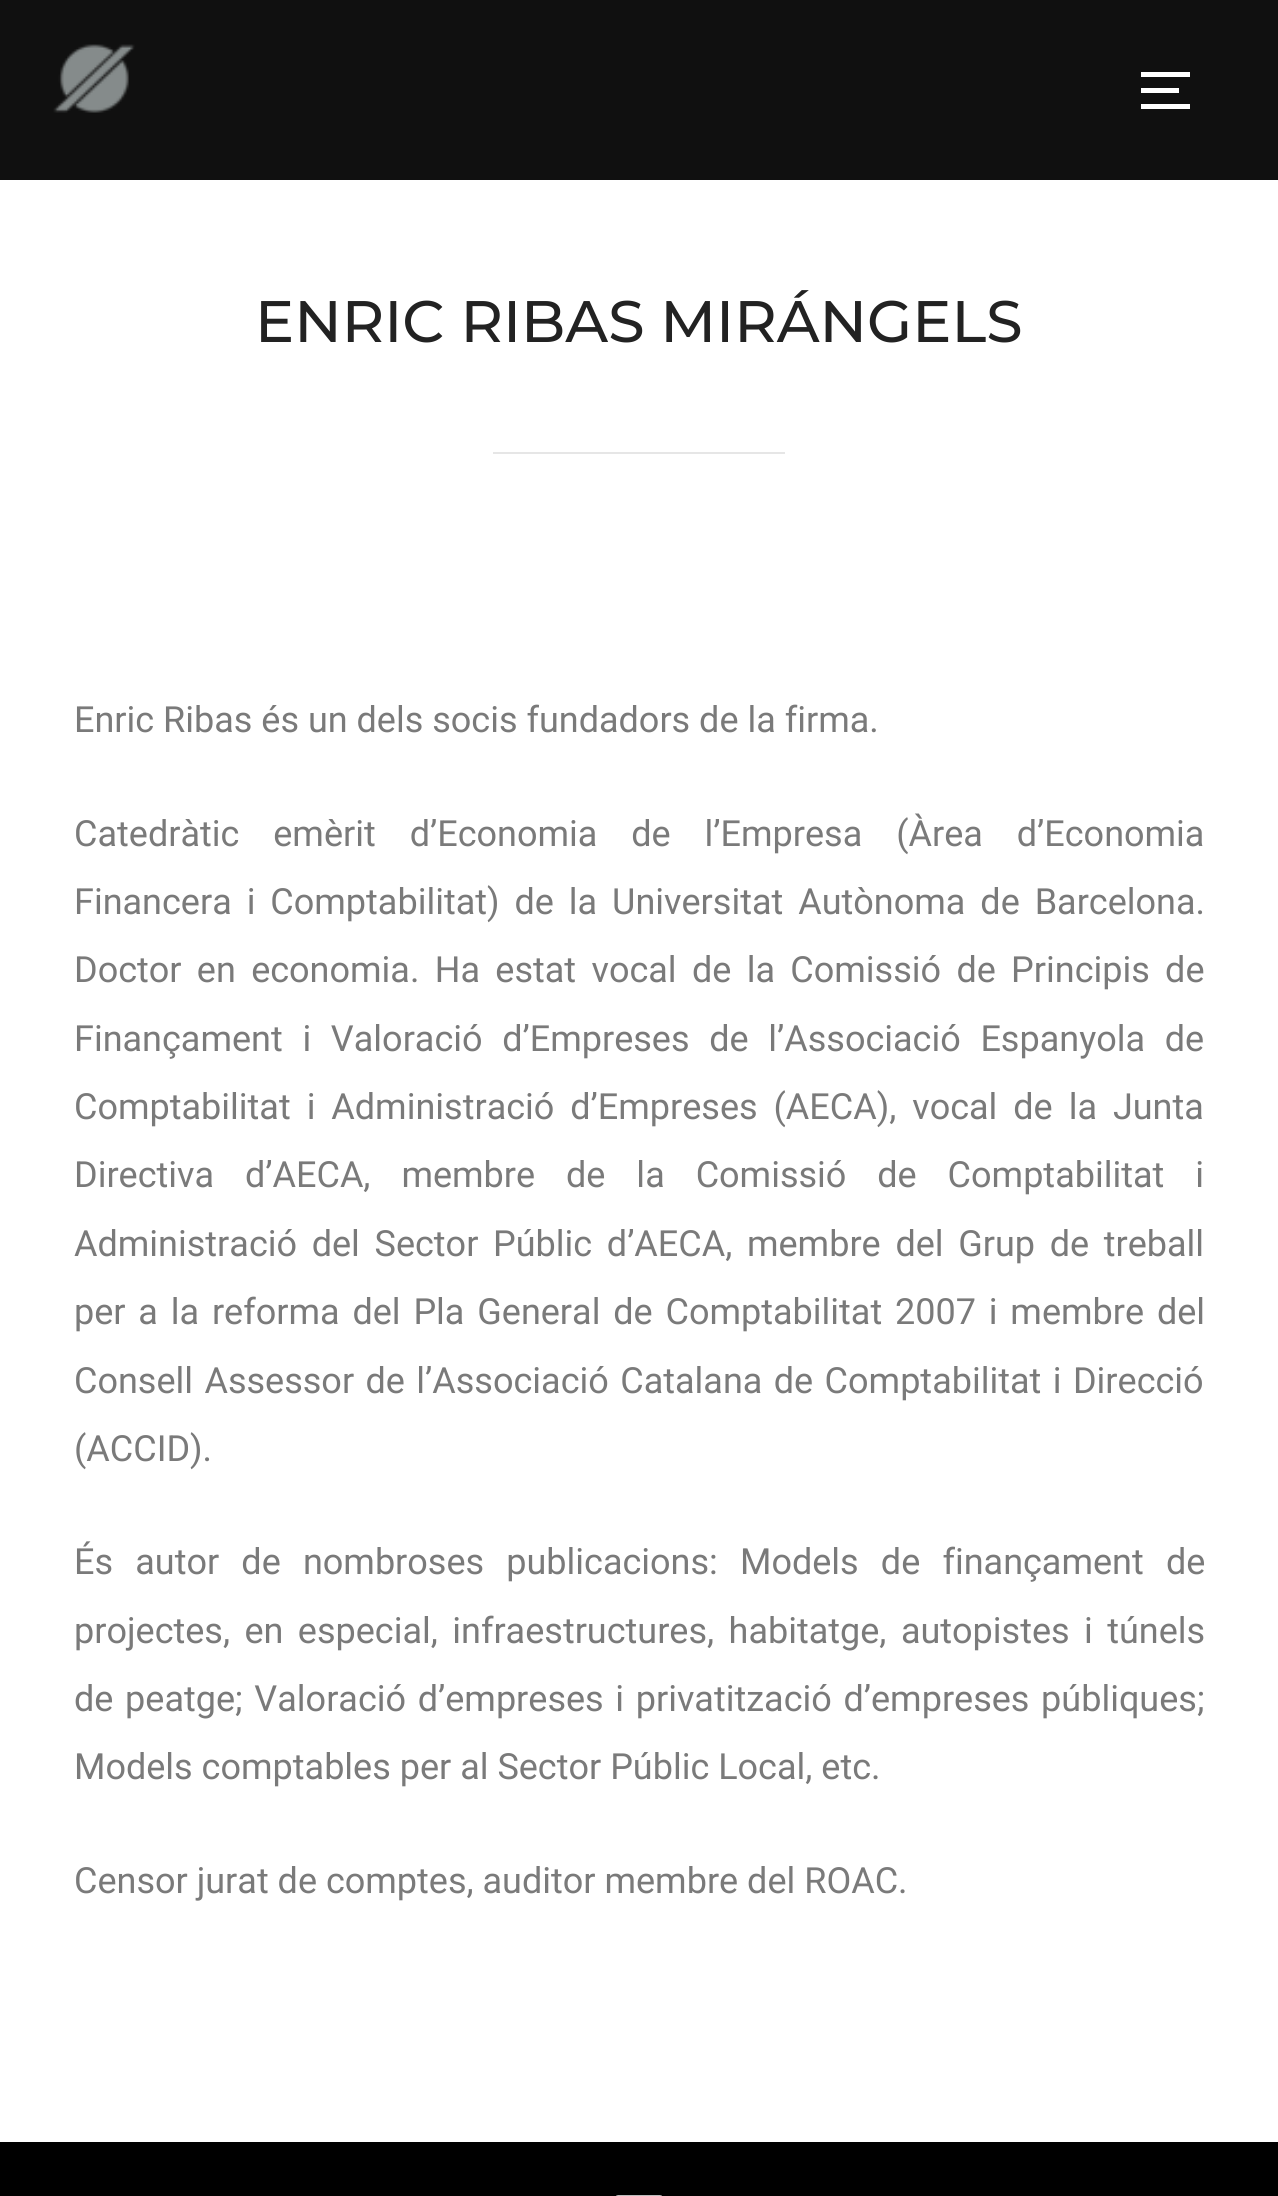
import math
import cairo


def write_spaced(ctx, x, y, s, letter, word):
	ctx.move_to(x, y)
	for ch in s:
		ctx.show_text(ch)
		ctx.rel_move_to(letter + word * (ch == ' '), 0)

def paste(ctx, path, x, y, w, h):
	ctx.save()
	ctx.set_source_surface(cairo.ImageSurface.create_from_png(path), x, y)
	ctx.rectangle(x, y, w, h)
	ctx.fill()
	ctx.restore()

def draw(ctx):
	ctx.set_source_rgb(1, 1, 1)
	ctx.paint()
	ctx.set_source_rgb(0.063, 0.063, 0.063)
	ctx.rectangle(0, 0, 1278, 180)
	ctx.fill()
	paste(ctx, 'media/1.png', 53, 44, 82, 69)
	ctx.set_source_rgb(1, 1, 1)
	ctx.rectangle(1141, 72, 49, 5)
	ctx.rectangle(1141, 88, 38, 5)
	ctx.rectangle(1141, 104, 49, 5)
	ctx.fill()
	ctx.select_font_face('Montserrat Medium')
	ctx.set_font_size(58.5)
	ctx.set_source_rgb(0.133, 0.133, 0.133)
	ctx.move_to(255, 342)
	ctx.show_text('ENRIC RIBAS MIRÁNGELS')
	ctx.set_source_rgb(0.902, 0.902, 0.902)
	ctx.rectangle(493, 452, 292, 2)
	ctx.fill()
	ctx.select_font_face('Roboto')
	ctx.set_font_size(36)
	ctx.set_source_rgb(0.478, 0.478, 0.478)
	ctx.move_to(74, 732)
	ctx.show_text('Enric Ribas és un dels socis fundadors de la firma.')
	write_spaced(ctx, 74, 846, 'Catedràtic emèrit d’Economia de l’Empresa (Àrea d’Economia', 0, 25)
	write_spaced(ctx, 74, 914, 'Financera i Comptabilitat) de la Universitat Autònoma de Barcelona.', 0, 6)
	write_spaced(ctx, 74, 982, 'Doctor en economia. Ha estat vocal de la Comissió de Principis de', 0, 6.4)
	write_spaced(ctx, 74, 1051, 'Finançament i Valoració d’Empreses de l’Associació Espanyola de', 0, 10.75)
	write_spaced(ctx, 74, 1119, 'Comptabilitat i Administració d’Empreses (AECA), vocal de la Junta', 0, 7)
	write_spaced(ctx, 74, 1187, 'Directiva d’AECA, membre de la Comissió de Comptabilitat i', 0, 22)
	write_spaced(ctx, 74, 1256, 'Administració del Sector Públic d’AECA, membre del Grup de treball', 0, 5.75)
	write_spaced(ctx, 74, 1324, 'per a la reforma del Pla General de Comptabilitat 2007 i membre del', 0, 3.9)
	write_spaced(ctx, 74, 1393, 'Consell Assessor de l’Associació Catalana de Comptabilitat i Direcció', 0, 2.5)
	ctx.move_to(74, 1461)
	ctx.show_text('(ACCID).')
	write_spaced(ctx, 74, 1574, 'És autor de nombroses publicacions: Models de finançament de', 0, 13.25)
	write_spaced(ctx, 74, 1643, 'projectes, en especial, infraestructures, habitatge, autopistes i túnels', 0, 5.5)
	write_spaced(ctx, 74, 1711, 'de peatge; Valoració d’empreses i privatització d’empreses públiques;', 0, 2.75)
	ctx.move_to(74, 1779)
	ctx.show_text('Models comptables per al Sector Públic Local, etc.')
	ctx.move_to(74, 1893)
	ctx.show_text('Censor jurat de comptes, auditor membre del ROAC.')
	ctx.set_source_rgb(0, 0, 0)
	ctx.rectangle(0, 2142, 1278, 54)
	ctx.fill()
	paste(ctx, 'media/2.png', 616, 2195, 46, 1)


surface = cairo.ImageSurface(cairo.FORMAT_RGB24, 1278, 2196)
ctx = cairo.Context(surface)
options = cairo.FontOptions()
options.set_hint_metrics(cairo.HINT_METRICS_OFF)
options.set_hint_style(cairo.HINT_STYLE_NONE)
ctx.set_font_options(options)
ctx.set_miter_limit(4)
draw(ctx)
surface.write_to_png('image.png')
